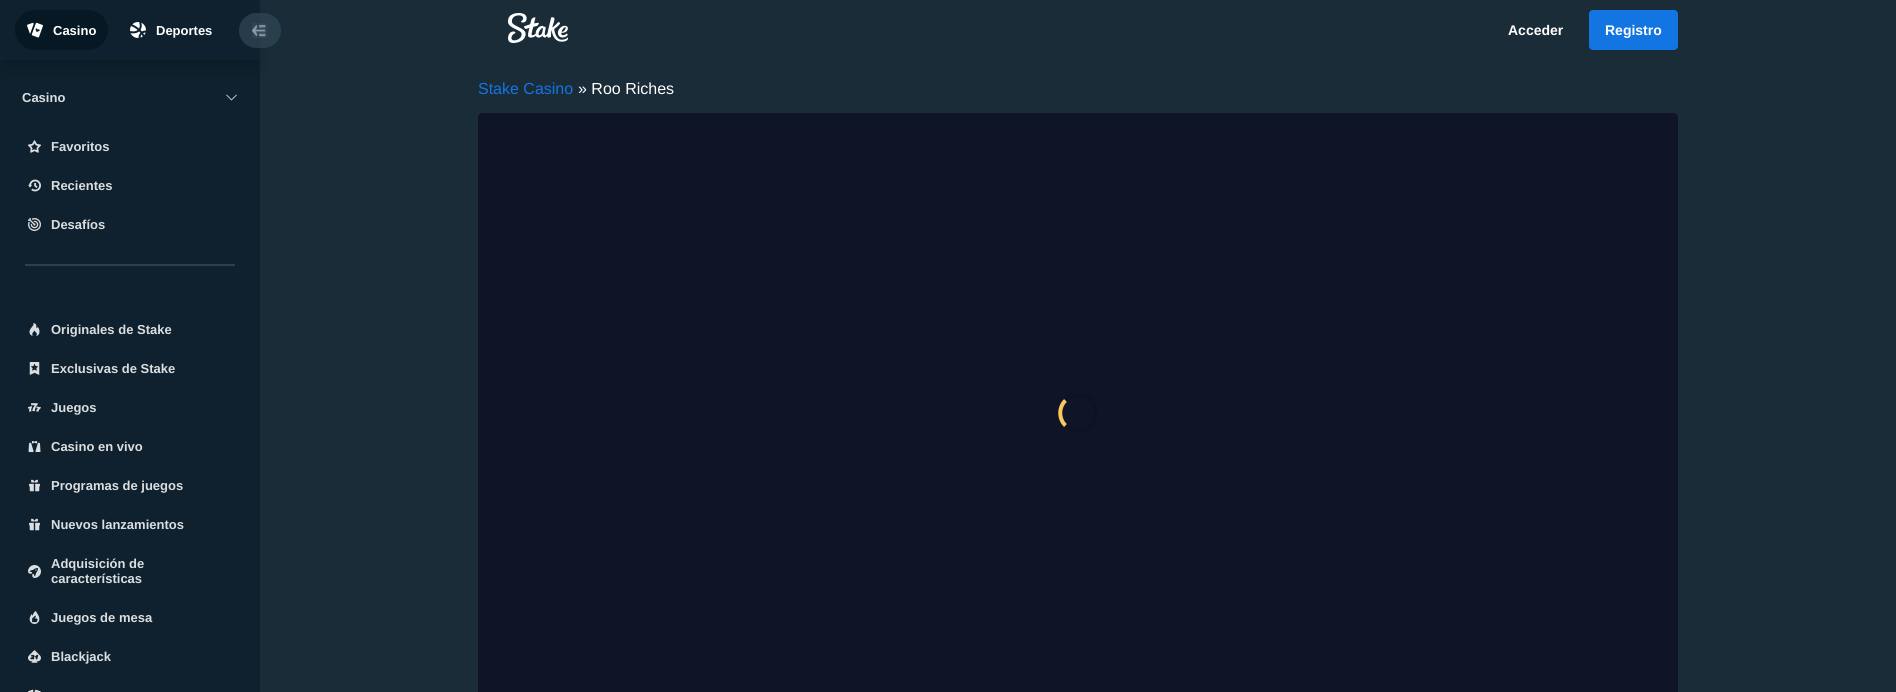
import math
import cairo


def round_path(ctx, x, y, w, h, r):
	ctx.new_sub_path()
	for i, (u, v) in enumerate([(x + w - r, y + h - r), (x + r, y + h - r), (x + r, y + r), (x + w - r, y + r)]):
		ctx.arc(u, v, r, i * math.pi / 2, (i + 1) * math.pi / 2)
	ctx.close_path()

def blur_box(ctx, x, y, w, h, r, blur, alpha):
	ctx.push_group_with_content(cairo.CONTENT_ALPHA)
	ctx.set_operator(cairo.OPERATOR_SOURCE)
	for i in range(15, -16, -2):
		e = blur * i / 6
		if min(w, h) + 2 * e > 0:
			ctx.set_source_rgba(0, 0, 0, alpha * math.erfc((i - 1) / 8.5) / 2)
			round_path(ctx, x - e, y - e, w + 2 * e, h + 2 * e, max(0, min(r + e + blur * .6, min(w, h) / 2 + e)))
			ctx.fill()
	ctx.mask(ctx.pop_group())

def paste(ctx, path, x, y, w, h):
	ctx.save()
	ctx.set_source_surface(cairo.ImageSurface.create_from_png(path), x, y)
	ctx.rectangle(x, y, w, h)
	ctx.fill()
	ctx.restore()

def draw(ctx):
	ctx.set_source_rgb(0.102, 0.173, 0.22)
	ctx.paint()
	ctx.set_source_rgb(0.059, 0.129, 0.18)
	ctx.rectangle(0, 60, 260, 632)
	ctx.fill()
	ctx.set_source_rgb(0, 0, 0)
	blur_box(ctx, 3, 13, 254, 54, 0, 7.5, 0.2)
	ctx.set_source_rgb(0.059, 0.129, 0.18)
	ctx.rectangle(0, 0, 260, 60)
	ctx.fill()
	ctx.set_source_rgb(0.027, 0.094, 0.141)
	round_path(ctx, 15, 10, 93, 40, 20)
	ctx.fill()
	paste(ctx, 'media/1.png', 27, 22, 16, 16)
	ctx.select_font_face('Liberation Sans', cairo.FONT_SLANT_NORMAL, cairo.FONT_WEIGHT_BOLD)
	ctx.set_font_size(13)
	ctx.set_source_rgb(1, 1, 1)
	ctx.move_to(53, 35)
	ctx.show_text('Casino')
	paste(ctx, 'media/2.png', 130, 22, 16, 16)
	ctx.move_to(156, 35)
	ctx.show_text('Deportes')
	ctx.set_source_rgba(0.184, 0.271, 0.325, 0.75)
	round_path(ctx, 239, 13, 42, 35, 17.5)
	ctx.fill()
	paste(ctx, 'media/3.png', 252, 23, 16, 15)
	paste(ctx, 'media/4.png', 508, 13, 60, 30)
	ctx.set_font_size(14)
	ctx.set_source_rgb(1, 1, 1)
	ctx.move_to(1508, 35)
	ctx.show_text('Acceder')
	ctx.set_source_rgb(0.078, 0.459, 0.882)
	round_path(ctx, 1589, 10, 89, 40, 4)
	ctx.fill()
	ctx.set_source_rgb(1, 1, 1)
	ctx.move_to(1605, 35)
	ctx.show_text('Registro')
	ctx.select_font_face('Liberation Sans')
	ctx.set_font_size(16)
	ctx.set_source_rgb(0.078, 0.459, 0.882)
	ctx.move_to(478, 94)
	ctx.show_text('Stake Casino')
	ctx.set_source_rgb(1, 1, 1)
	ctx.move_to(578, 94)
	ctx.show_text('» Roo Riches')
	ctx.set_source_rgb(0.059, 0.082, 0.149)
	ctx.new_path()
	ctx.move_to(482, 113)
	ctx.line_to(1674, 113)
	ctx.curve_to(1676, 113, 1678, 115, 1678, 117)
	ctx.line_to(1678, 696)
	ctx.line_to(478, 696)
	ctx.line_to(478, 117)
	ctx.curve_to(478, 115, 480, 113, 482, 113)
	ctx.close_path()
	ctx.fill()
	ctx.new_path()
	ctx.move_to(1065.5, 400.5)
	ctx.curve_to(1069.5, 396, 1075.5, 394, 1081.5, 395.5)
	ctx.curve_to(1102.5, 399.5, 1099.5, 431, 1078, 431)
	ctx.curve_to(1073.5, 431, 1068.5, 429, 1065.5, 425.5)
	ctx.set_source_rgb(0.055, 0.075, 0.133)
	ctx.set_line_width(4)
	ctx.stroke()
	ctx.new_path()
	ctx.move_to(1065.5, 425.5)
	ctx.curve_to(1058.5, 419, 1058.5, 407, 1065.5, 400.5)
	ctx.set_source_rgb(0.98, 0.784, 0.361)
	ctx.stroke()
	ctx.select_font_face('Liberation Sans', cairo.FONT_SLANT_NORMAL, cairo.FONT_WEIGHT_BOLD)
	ctx.set_font_size(13)
	ctx.set_source_rgb(0.859, 0.871, 0.878)
	ctx.move_to(22, 102)
	ctx.show_text('Casino')
	paste(ctx, 'media/5.png', 226, 94, 11, 7)
	paste(ctx, 'media/6.png', 28, 140, 13, 13)
	ctx.move_to(51, 151)
	ctx.show_text('Favoritos')
	paste(ctx, 'media/7.png', 28, 179, 13, 13)
	ctx.move_to(51, 190)
	ctx.show_text('Recientes')
	paste(ctx, 'media/8.png', 28, 218, 13, 13)
	ctx.move_to(51, 229)
	ctx.show_text('Desafíos')
	ctx.set_source_rgb(0.165, 0.251, 0.302)
	ctx.rectangle(25, 264, 210, 2)
	ctx.fill()
	paste(ctx, 'media/9.png', 29, 323, 11, 13)
	ctx.set_source_rgb(0.859, 0.871, 0.878)
	ctx.move_to(51, 334)
	ctx.show_text('Originales de Stake')
	paste(ctx, 'media/10.png', 29, 362, 11, 13)
	ctx.move_to(51, 373)
	ctx.show_text('Exclusivas de Stake')
	paste(ctx, 'media/11.png', 28, 403, 13, 9)
	ctx.move_to(51, 412)
	ctx.show_text('Juegos')
	paste(ctx, 'media/12.png', 28, 441, 13, 12)
	ctx.move_to(51, 451)
	ctx.show_text('Casino en vivo')
	paste(ctx, 'media/13.png', 29, 479, 11, 13)
	ctx.move_to(51, 490)
	ctx.show_text('Programas de juegos')
	paste(ctx, 'media/13.png', 29, 518, 11, 13)
	ctx.move_to(51, 529)
	ctx.show_text('Nuevos lanzamientos')
	paste(ctx, 'media/14.png', 28, 565, 13, 13)
	ctx.move_to(51, 568)
	ctx.show_text('Adquisición de')
	ctx.move_to(51, 583)
	ctx.show_text('características')
	paste(ctx, 'media/15.png', 29, 611, 11, 13)
	ctx.move_to(51, 622)
	ctx.show_text('Juegos de mesa')
	paste(ctx, 'media/16.png', 28, 650, 13, 13)
	ctx.move_to(51, 661)
	ctx.show_text('Blackjack')
	paste(ctx, 'media/17.png', 28, 689, 13, 3)


surface = cairo.ImageSurface(cairo.FORMAT_RGB24, 1896, 692)
ctx = cairo.Context(surface)
options = cairo.FontOptions()
options.set_hint_metrics(cairo.HINT_METRICS_OFF)
options.set_hint_style(cairo.HINT_STYLE_NONE)
ctx.set_font_options(options)
ctx.set_miter_limit(4)
draw(ctx)
surface.write_to_png('image.png')
